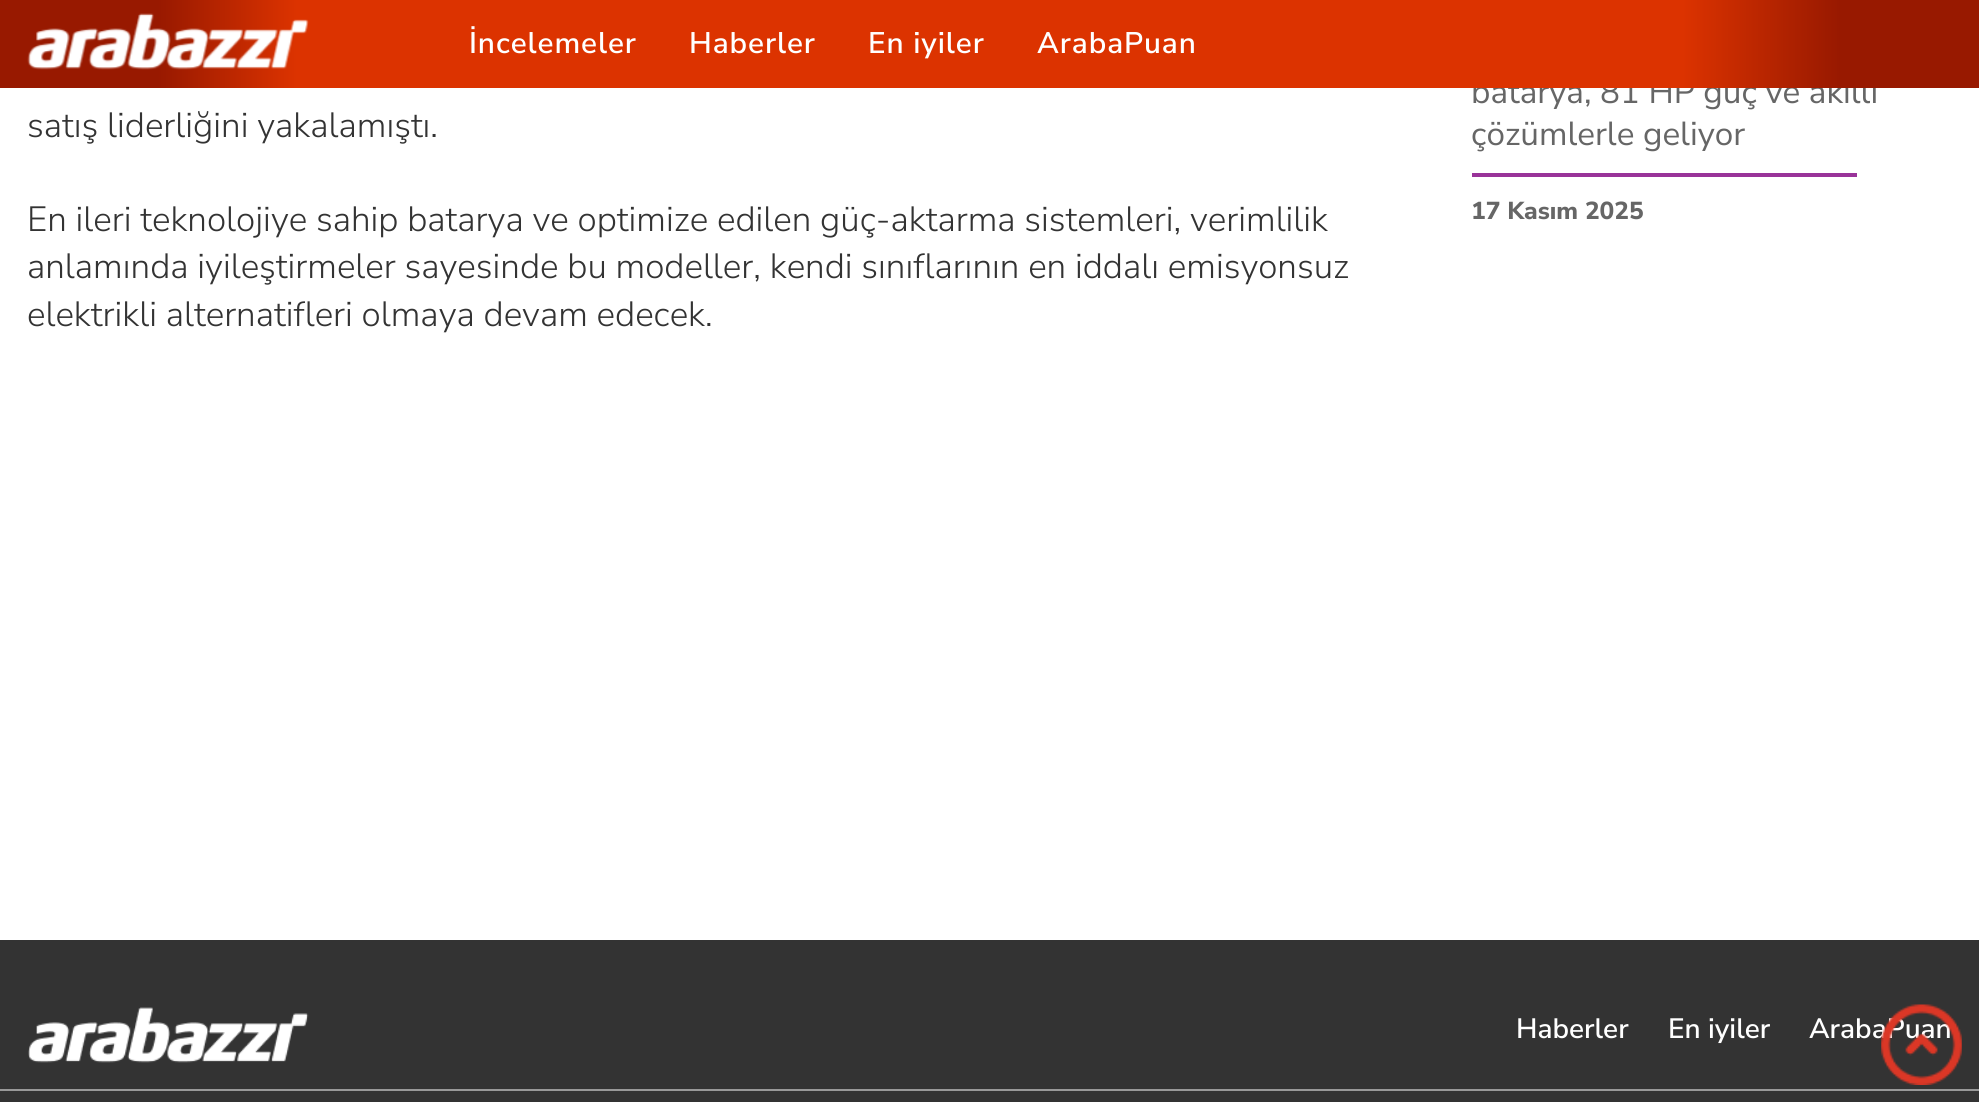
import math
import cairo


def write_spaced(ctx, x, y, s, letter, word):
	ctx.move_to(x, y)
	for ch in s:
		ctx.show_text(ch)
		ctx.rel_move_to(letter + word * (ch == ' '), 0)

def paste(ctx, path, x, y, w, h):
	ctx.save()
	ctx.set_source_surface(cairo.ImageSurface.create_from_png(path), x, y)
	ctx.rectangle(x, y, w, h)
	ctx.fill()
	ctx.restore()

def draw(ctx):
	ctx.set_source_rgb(1, 1, 1)
	ctx.paint()
	ctx.select_font_face('Nunito Sans')
	ctx.set_font_size(33.25)
	ctx.set_source_rgb(0.4, 0.4, 0.4)
	ctx.move_to(1471, 103)
	ctx.show_text('batarya, 81 HP güç ve akıllı')
	gradient = cairo.LinearGradient(0, 44, 1979, 44)
	gradient.add_color_stop_rgba(0, 0.596, 0.098, 0, 1)
	gradient.add_color_stop_rgba(0.08, 0.596, 0.098, 0, 1)
	gradient.add_color_stop_rgba(0.15, 0.863, 0.2, 0, 1)
	gradient.add_color_stop_rgba(0.85, 0.863, 0.2, 0, 1)
	gradient.add_color_stop_rgba(0.93, 0.596, 0.098, 0, 1)
	gradient.add_color_stop_rgba(1, 0.596, 0.098, 0, 1)
	ctx.set_source(gradient)
	ctx.rectangle(0, 0, 1979, 88)
	ctx.fill()
	paste(ctx, 'media/1.png', 27, 13, 282, 57)
	ctx.select_font_face('Nunito Sans SemiBold')
	ctx.set_font_size(29.75)
	ctx.set_source_rgb(1, 1, 1)
	for x, y, s in [
		(469, 53, 'İncelemeler'),
		(689, 53, 'Haberler'),
		(868, 53, 'En iyiler'),
		(1037, 53, 'ArabaPuan'),
	]:
		write_spaced(ctx, x, y, s, 0.9, 0)
	ctx.select_font_face('Nunito Sans Light')
	ctx.set_font_size(35)
	ctx.set_source_rgb(0.2, 0.2, 0.2)
	for x, y, s in [
		(27, 137, 'satış liderliğini yakalamıştı.'),
		(27, 231, 'En ileri teknolojiye sahip batarya ve optimize edilen güç-aktarma sistemleri, verimlilik'),
		(27, 278, 'anlamında iyileştirmeler sayesinde bu modeller, kendi sınıflarının en iddalı emisyonsuz'),
		(27, 326, 'elektrikli alternatifleri olmaya devam edecek.'),
	]:
		ctx.move_to(x, y)
		ctx.show_text(s)
	ctx.select_font_face('Nunito Sans')
	ctx.set_font_size(33.25)
	ctx.set_source_rgb(0.4, 0.4, 0.4)
	ctx.move_to(1471, 145)
	ctx.show_text('çözümlerle geliyor')
	ctx.set_source_rgb(0.6, 0.2, 0.6)
	ctx.rectangle(1472, 173, 385, 4)
	ctx.fill()
	ctx.select_font_face('Nunito Sans ExtraBold')
	ctx.set_font_size(24.5)
	ctx.set_source_rgb(0.4, 0.4, 0.4)
	ctx.move_to(1471, 219)
	ctx.show_text('17 Kasım 2025')
	ctx.set_source_rgb(0.2, 0.2, 0.2)
	ctx.rectangle(0, 940, 1979, 149)
	ctx.fill()
	paste(ctx, 'media/2.png', 28, 1007, 281, 56)
	ctx.select_font_face('Nunito Sans SemiBold')
	ctx.set_font_size(28)
	ctx.set_source_rgb(1, 1, 1)
	for x, y, s in [
		(1516, 1038, 'Haberler'),
		(1668, 1038, 'En iyiler'),
		(1809, 1038, 'ArabaPuan'),
	]:
		ctx.move_to(x, y)
		ctx.show_text(s)
	ctx.set_source_rgb(0.2, 0.2, 0.2)
	ctx.rectangle(0, 1091, 1979, 11)
	ctx.fill()
	ctx.set_source_rgb(0.6, 0.6, 0.6)
	ctx.rectangle(0, 1089, 1979, 2)
	ctx.fill()
	paste(ctx, 'media/3.png', 1881, 1004, 81, 81)


surface = cairo.ImageSurface(cairo.FORMAT_RGB24, 1979, 1102)
ctx = cairo.Context(surface)
options = cairo.FontOptions()
options.set_hint_metrics(cairo.HINT_METRICS_OFF)
options.set_hint_style(cairo.HINT_STYLE_NONE)
ctx.set_font_options(options)
ctx.set_miter_limit(4)
draw(ctx)
surface.write_to_png('image.png')
